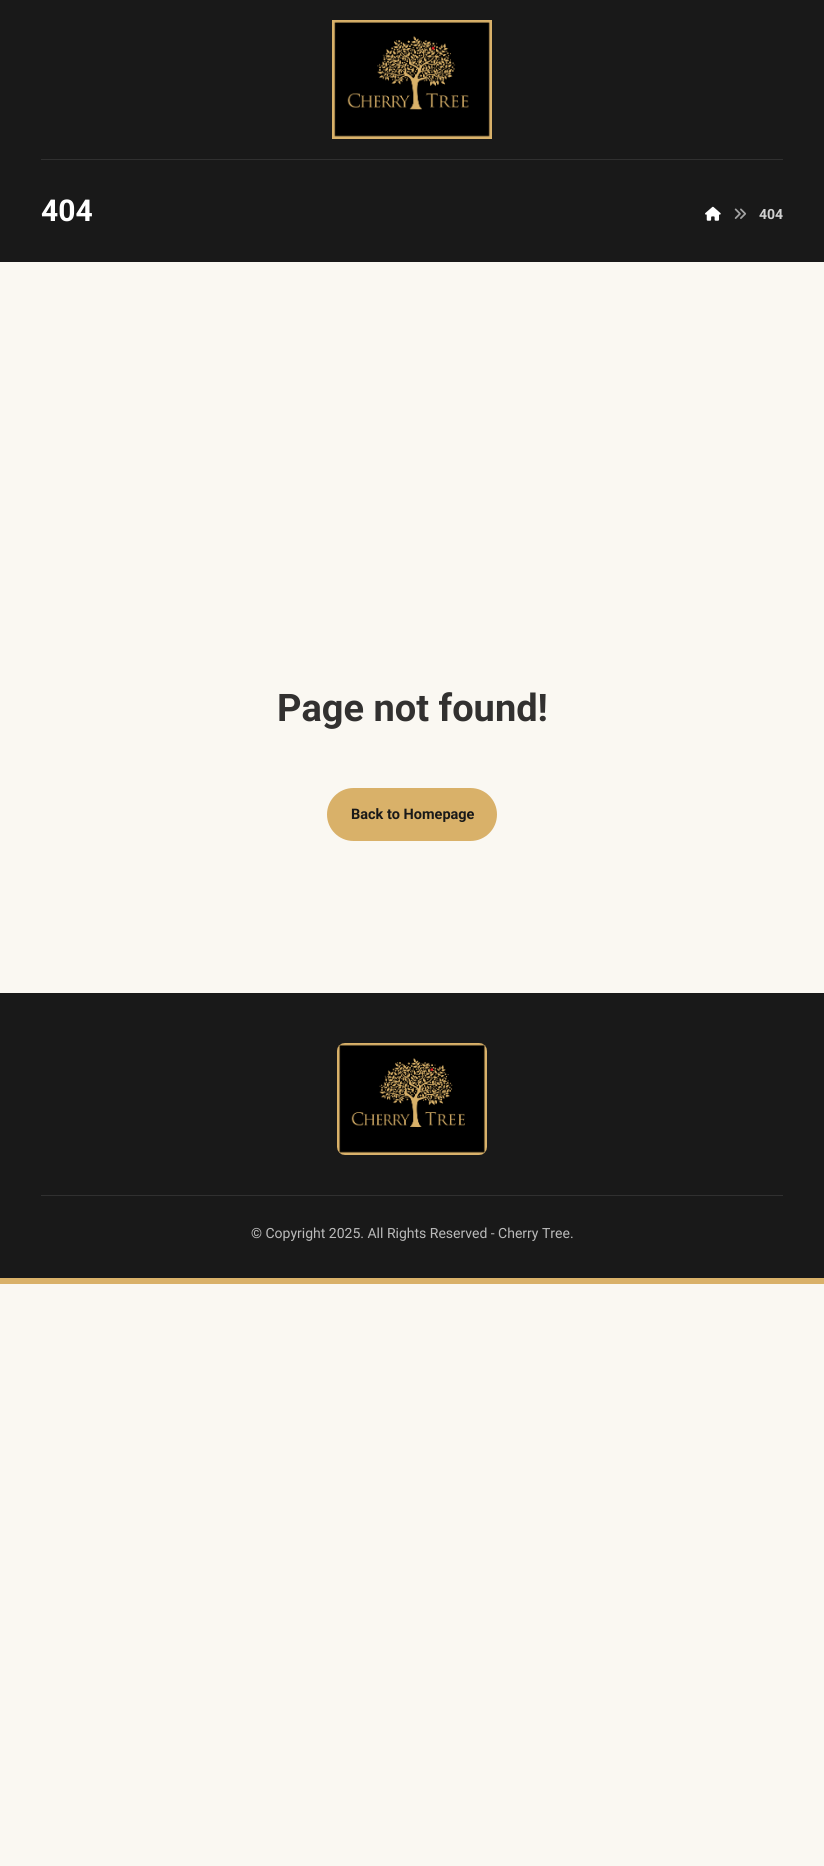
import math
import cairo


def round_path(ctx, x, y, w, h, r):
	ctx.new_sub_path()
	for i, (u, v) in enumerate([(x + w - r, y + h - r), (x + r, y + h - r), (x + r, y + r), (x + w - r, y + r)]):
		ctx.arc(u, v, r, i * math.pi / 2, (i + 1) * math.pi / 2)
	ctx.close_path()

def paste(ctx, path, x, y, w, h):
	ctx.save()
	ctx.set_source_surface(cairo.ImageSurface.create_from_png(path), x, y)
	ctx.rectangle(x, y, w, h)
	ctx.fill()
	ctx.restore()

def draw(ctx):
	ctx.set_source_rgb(0.98, 0.969, 0.949)
	ctx.paint()
	ctx.set_source_rgb(0.098, 0.098, 0.098)
	ctx.rectangle(0, 0, 824, 262)
	ctx.fill()
	ctx.set_source_rgb(0.188, 0.188, 0.188)
	ctx.rectangle(41, 159, 742, 1)
	ctx.fill()
	paste(ctx, 'media/1.png', 332, 20, 160, 119)
	ctx.select_font_face('Roboto', cairo.FONT_SLANT_NORMAL, cairo.FONT_WEIGHT_BOLD)
	ctx.set_font_size(30)
	ctx.set_source_rgb(1, 1, 1)
	ctx.move_to(41, 221)
	ctx.show_text('404')
	paste(ctx, 'media/2.png', 705, 206, 16, 15)
	paste(ctx, 'media/3.png', 734, 208, 13, 11)
	ctx.set_font_size(14)
	ctx.set_source_rgb(0.82, 0.82, 0.82)
	ctx.move_to(759, 219)
	ctx.show_text('404')
	ctx.set_font_size(38)
	ctx.set_source_rgb(0.196, 0.192, 0.188)
	ctx.move_to(277, 721)
	ctx.show_text('Page not found!')
	ctx.set_source_rgb(0.851, 0.694, 0.412)
	round_path(ctx, 327, 788, 170, 53, 26.5)
	ctx.fill()
	ctx.set_font_size(14.5)
	ctx.set_source_rgb(0.098, 0.098, 0.098)
	ctx.move_to(351, 819)
	ctx.show_text('Back to Homepage')
	ctx.rectangle(0, 993, 824, 285)
	ctx.fill()
	ctx.set_source_rgb(0.851, 0.694, 0.412)
	ctx.rectangle(0, 1278, 824, 6)
	ctx.fill()
	paste(ctx, 'media/4.png', 337, 1043, 150, 112)
	ctx.set_source_rgb(0.188, 0.188, 0.188)
	ctx.rectangle(41, 1195, 742, 1)
	ctx.fill()
	ctx.select_font_face('Roboto')
	ctx.set_font_size(14)
	ctx.set_source_rgb(0.729, 0.729, 0.729)
	ctx.move_to(251, 1238)
	ctx.show_text('© Copyright 2025. All Rights Reserved - Cherry Tree.')


surface = cairo.ImageSurface(cairo.FORMAT_RGB24, 824, 1866)
ctx = cairo.Context(surface)
options = cairo.FontOptions()
options.set_hint_metrics(cairo.HINT_METRICS_OFF)
options.set_hint_style(cairo.HINT_STYLE_NONE)
ctx.set_font_options(options)
ctx.set_miter_limit(4)
draw(ctx)
surface.write_to_png('image.png')
